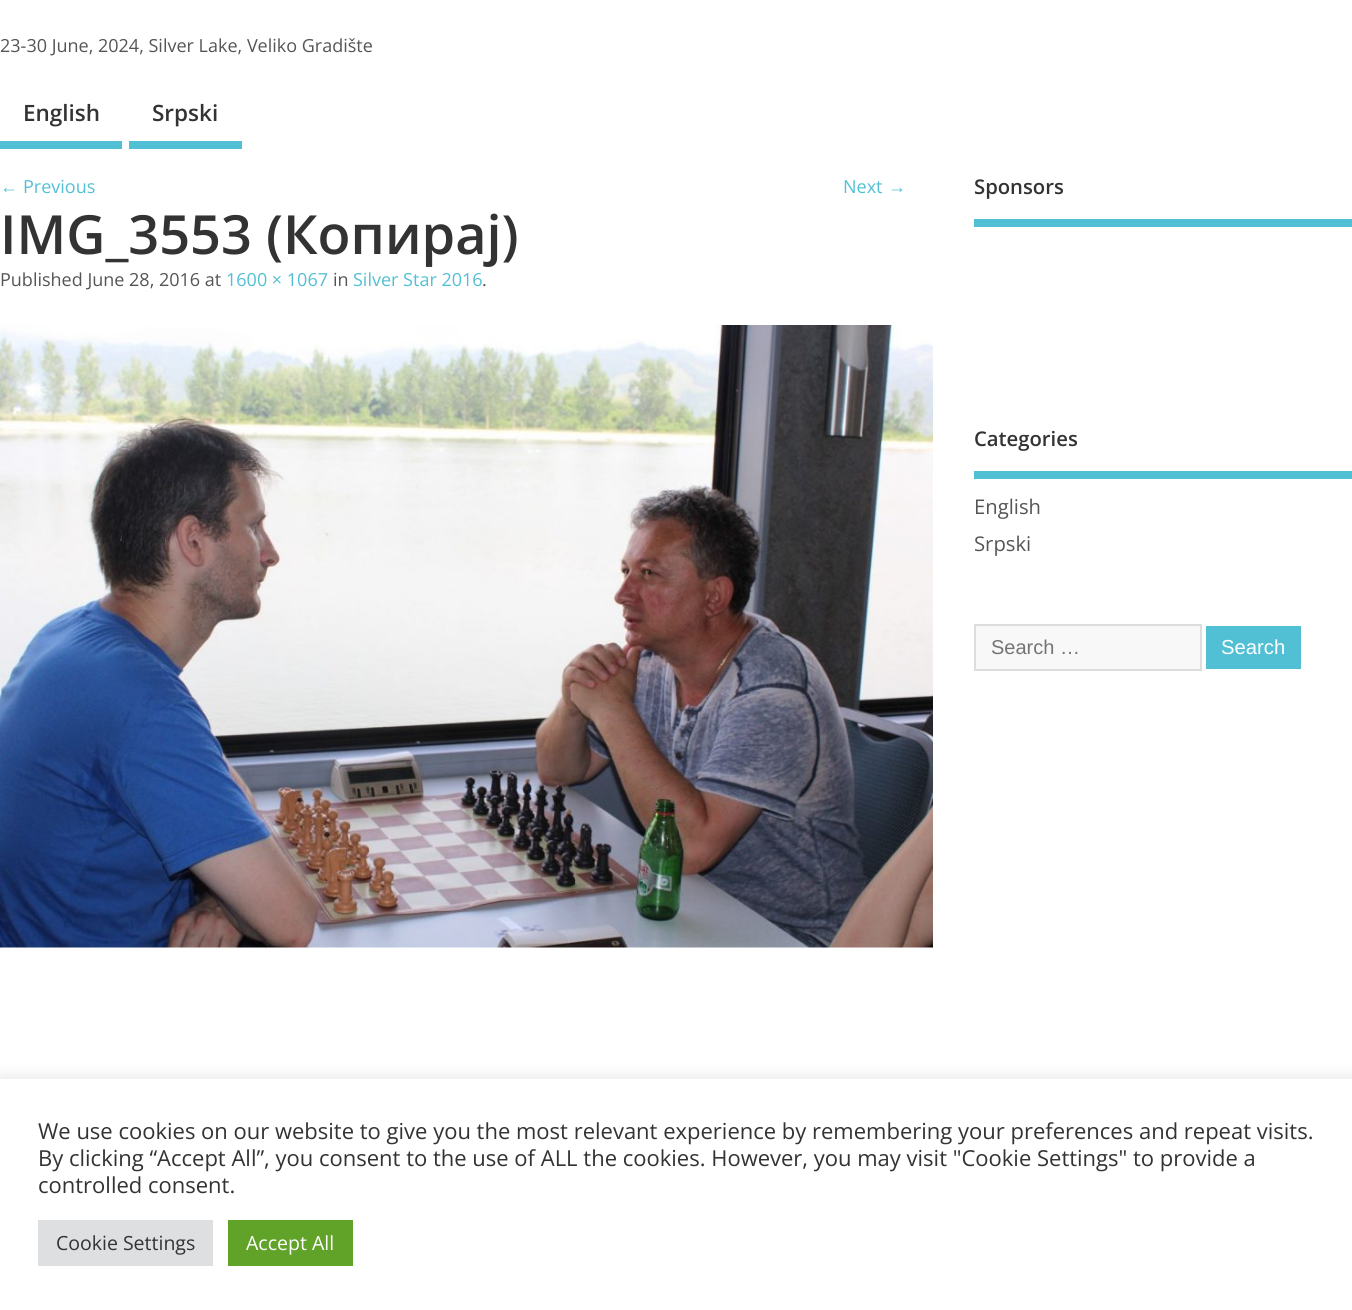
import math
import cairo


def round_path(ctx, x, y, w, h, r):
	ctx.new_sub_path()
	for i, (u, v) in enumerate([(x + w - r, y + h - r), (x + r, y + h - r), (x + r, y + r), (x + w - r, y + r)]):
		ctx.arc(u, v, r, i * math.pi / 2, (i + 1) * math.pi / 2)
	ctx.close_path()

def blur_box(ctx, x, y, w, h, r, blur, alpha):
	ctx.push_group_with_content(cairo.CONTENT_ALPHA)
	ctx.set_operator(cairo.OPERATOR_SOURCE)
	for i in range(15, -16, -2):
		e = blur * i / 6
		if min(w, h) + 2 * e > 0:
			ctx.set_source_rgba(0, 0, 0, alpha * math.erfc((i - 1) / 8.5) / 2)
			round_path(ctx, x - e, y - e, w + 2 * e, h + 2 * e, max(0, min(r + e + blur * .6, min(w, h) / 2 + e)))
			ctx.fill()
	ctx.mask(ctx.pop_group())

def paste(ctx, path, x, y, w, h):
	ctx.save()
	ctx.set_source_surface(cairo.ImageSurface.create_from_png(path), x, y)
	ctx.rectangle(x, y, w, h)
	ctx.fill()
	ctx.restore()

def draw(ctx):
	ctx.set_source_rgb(1, 1, 1)
	ctx.paint()
	ctx.select_font_face('Open Sans')
	ctx.set_font_size(18)
	ctx.set_source_rgb(0.333, 0.333, 0.333)
	ctx.move_to(0, 52)
	ctx.show_text('23-30 June, 2024, Silver Lake, Veliko Gradište')
	ctx.set_source_rgb(0.322, 0.753, 0.831)
	ctx.rectangle(0, 141, 122, 8)
	ctx.fill()
	ctx.select_font_face('Open Sans SemiBold')
	ctx.set_font_size(22.5)
	ctx.set_source_rgb(0.2, 0.2, 0.2)
	ctx.move_to(23, 121)
	ctx.show_text('English')
	ctx.set_source_rgb(0.322, 0.753, 0.831)
	ctx.rectangle(129, 141, 113, 8)
	ctx.fill()
	ctx.set_source_rgb(0.2, 0.2, 0.2)
	ctx.move_to(152, 121)
	ctx.show_text('Srpski')
	ctx.select_font_face('Liberation Sans')
	ctx.set_font_size(18)
	ctx.set_source_rgb(0.322, 0.753, 0.831)
	ctx.move_to(0, 193)
	ctx.show_text('←')
	ctx.select_font_face('Open Sans')
	ctx.move_to(23, 193)
	ctx.show_text('Previous')
	ctx.move_to(843, 193)
	ctx.show_text('Next')
	ctx.select_font_face('Liberation Sans')
	ctx.move_to(888, 193)
	ctx.show_text('→')
	ctx.select_font_face('Open Sans SemiBold')
	ctx.set_font_size(54)
	ctx.set_source_rgb(0.2, 0.2, 0.2)
	ctx.move_to(0, 254)
	ctx.show_text('IMG_3553 (Копирај)')
	ctx.select_font_face('Open Sans')
	ctx.set_font_size(18)
	ctx.set_source_rgb(0.333, 0.333, 0.333)
	ctx.move_to(0, 286)
	ctx.show_text('Published June 28, 2016 at')
	ctx.set_source_rgb(0.322, 0.753, 0.831)
	ctx.move_to(226, 286)
	ctx.show_text('1600 × 1067')
	ctx.set_source_rgb(0.333, 0.333, 0.333)
	ctx.move_to(333, 286)
	ctx.show_text('in')
	ctx.set_source_rgb(0.322, 0.753, 0.831)
	ctx.move_to(353, 286)
	ctx.show_text('Silver Star 2016')
	ctx.set_source_rgb(0.333, 0.333, 0.333)
	ctx.move_to(482, 286)
	ctx.show_text('.')
	paste(ctx, 'media/1.png', 0, 325, 933, 623)
	ctx.set_source_rgb(0.322, 0.753, 0.831)
	ctx.rectangle(974, 219, 378, 8)
	ctx.fill()
	ctx.select_font_face('Open Sans SemiBold')
	ctx.set_font_size(20.25)
	ctx.set_source_rgb(0.2, 0.2, 0.2)
	ctx.move_to(974, 194)
	ctx.show_text('Sponsors')
	ctx.set_source_rgb(0.322, 0.753, 0.831)
	ctx.rectangle(974, 471, 378, 8)
	ctx.fill()
	ctx.set_source_rgb(0.2, 0.2, 0.2)
	ctx.move_to(974, 446)
	ctx.show_text('Categories')
	ctx.select_font_face('Open Sans')
	ctx.set_source_rgb(0.333, 0.333, 0.333)
	ctx.move_to(974, 514)
	ctx.show_text('English')
	ctx.move_to(974, 551)
	ctx.show_text('Srpski')
	ctx.set_source_rgb(0.969, 0.969, 0.969)
	ctx.rectangle(975, 625, 226, 45)
	ctx.fill_preserve()
	ctx.set_source_rgb(0.867, 0.867, 0.867)
	ctx.stroke()
	ctx.select_font_face('Liberation Sans')
	ctx.set_font_size(20)
	ctx.set_source_rgb(0.459, 0.459, 0.459)
	ctx.move_to(991, 654)
	ctx.show_text('Search …')
	ctx.set_source_rgb(0.322, 0.753, 0.831)
	ctx.rectangle(1206, 626, 95, 43)
	ctx.fill()
	ctx.set_font_size(20.25)
	ctx.set_source_rgb(1, 1, 1)
	ctx.move_to(1221, 654)
	ctx.show_text('Search')
	ctx.set_source_rgb(0.675, 0.671, 0.671)
	blur_box(ctx, 0, 1077, 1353, 233, 0, 7.5, 0.3)
	ctx.set_source_rgb(1, 1, 1)
	ctx.rectangle(0, 1079, 1352, 231)
	ctx.fill()
	ctx.select_font_face('Open Sans')
	ctx.set_font_size(22)
	ctx.set_source_rgb(0.2, 0.2, 0.2)
	for x, y, s in [
		(38, 1139, 'We use cookies on our website to give you the most relevant experience by remembering your preferences and repeat visits.'),
		(38, 1166, 'By clicking “Accept All”, you consent to the use of ALL the cookies. However, you may visit "Cookie Settings" to provide a'),
		(38, 1193, 'controlled consent.'),
	]:
		ctx.move_to(x, y)
		ctx.show_text(s)
	ctx.set_source_rgb(0.871, 0.875, 0.878)
	ctx.rectangle(38, 1220, 175, 46)
	ctx.fill()
	ctx.set_font_size(19.5)
	ctx.set_source_rgb(0.2, 0.2, 0.2)
	ctx.move_to(56, 1250)
	ctx.show_text('Cookie Settings')
	ctx.set_source_rgb(0.38, 0.635, 0.161)
	ctx.rectangle(228, 1220, 125, 46)
	ctx.fill()
	ctx.set_source_rgb(1, 1, 1)
	ctx.move_to(246, 1250)
	ctx.show_text('Accept All')


surface = cairo.ImageSurface(cairo.FORMAT_RGB24, 1352, 1310)
ctx = cairo.Context(surface)
options = cairo.FontOptions()
options.set_hint_metrics(cairo.HINT_METRICS_OFF)
options.set_hint_style(cairo.HINT_STYLE_NONE)
ctx.set_font_options(options)
ctx.set_miter_limit(4)
draw(ctx)
surface.write_to_png('image.png')
